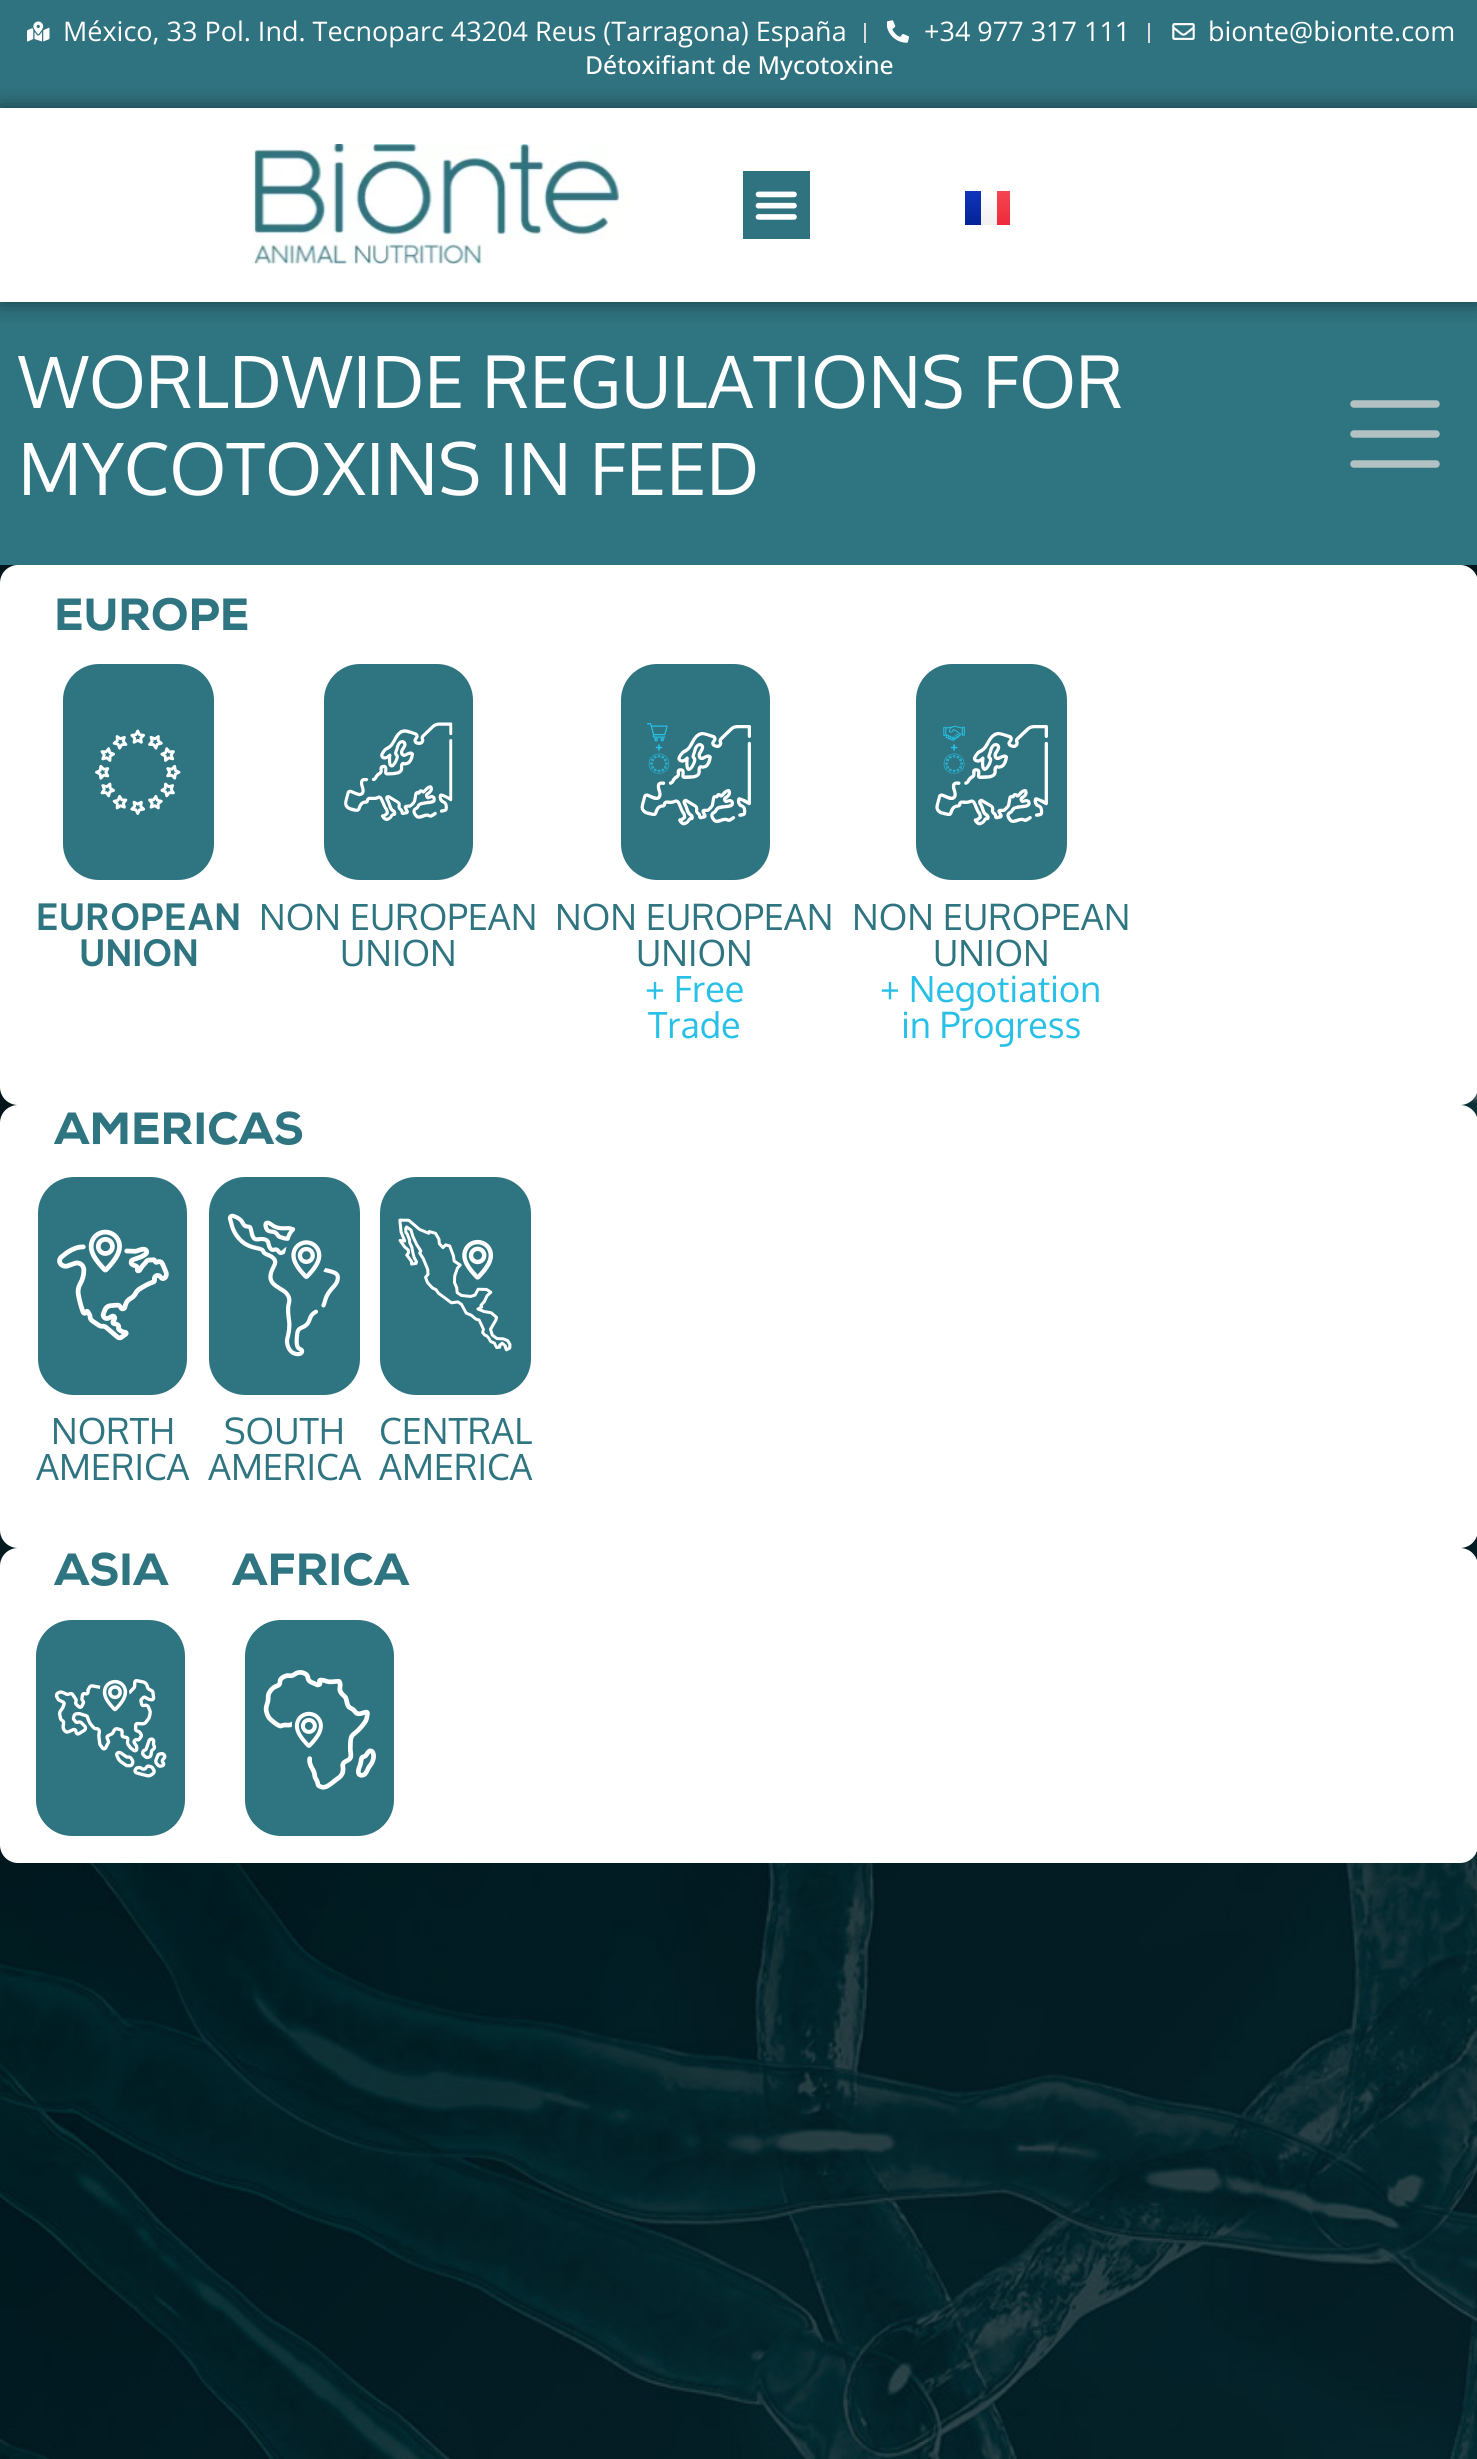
import math
import cairo


def round_path(ctx, x, y, w, h, r):
	ctx.new_sub_path()
	for i, (u, v) in enumerate([(x + w - r, y + h - r), (x + r, y + h - r), (x + r, y + r), (x + w - r, y + r)]):
		ctx.arc(u, v, r, i * math.pi / 2, (i + 1) * math.pi / 2)
	ctx.close_path()

def blur_box(ctx, x, y, w, h, r, blur, alpha):
	ctx.push_group_with_content(cairo.CONTENT_ALPHA)
	ctx.set_operator(cairo.OPERATOR_SOURCE)
	for i in range(15, -16, -2):
		e = blur * i / 6
		if min(w, h) + 2 * e > 0:
			ctx.set_source_rgba(0, 0, 0, alpha * math.erfc((i - 1) / 8.5) / 2)
			round_path(ctx, x - e, y - e, w + 2 * e, h + 2 * e, max(0, min(r + e + blur * .6, min(w, h) / 2 + e)))
			ctx.fill()
	ctx.mask(ctx.pop_group())

def paste(ctx, path, x, y, w, h):
	ctx.save()
	ctx.set_source_surface(cairo.ImageSurface.create_from_png(path), x, y)
	ctx.rectangle(x, y, w, h)
	ctx.fill()
	ctx.restore()

def draw(ctx):
	ctx.set_source_rgb(1, 1, 1)
	ctx.paint()
	paste(ctx, 'media/1.png', 0, 565, 1477, 1894)
	ctx.set_source_rgb(0.188, 0.451, 0.502)
	ctx.rectangle(0, 0, 1477, 108)
	ctx.fill()
	paste(ctx, 'media/2.png', 27, 21, 23, 21)
	ctx.select_font_face('Open Sans')
	ctx.set_font_size(27)
	ctx.set_source_rgb(1, 1, 1)
	ctx.move_to(63, 41)
	ctx.show_text('México, 33 Pol. Ind. Tecnoparc 43204 Reus (Tarragona) España')
	ctx.set_source_rgb(0.867, 0.867, 0.867)
	ctx.rectangle(864, 23, 2, 20)
	ctx.fill()
	paste(ctx, 'media/3.png', 887, 20, 22, 23)
	ctx.set_source_rgb(1, 1, 1)
	ctx.move_to(924, 41)
	ctx.show_text('+34 977 317 111')
	ctx.set_source_rgb(0.867, 0.867, 0.867)
	ctx.rectangle(1148, 23, 2, 20)
	ctx.fill()
	paste(ctx, 'media/4.png', 1172, 23, 23, 17)
	ctx.set_source_rgb(1, 1, 1)
	ctx.move_to(1208, 41)
	ctx.show_text('bionte@bionte.com')
	ctx.select_font_face('Open Sans Medium')
	ctx.set_font_size(24.75)
	ctx.move_to(585, 74)
	ctx.show_text('Détoxifiant de Mycotoxine')
	ctx.set_source_rgb(0.184, 0.459, 0.506)
	ctx.rectangle(0, 302, 1477, 263)
	ctx.fill()
	ctx.set_source_rgb(0, 0, 0)
	blur_box(ctx, 0, 108, 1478, 194, 0, 11, 0.5)
	ctx.set_source_rgb(1, 1, 1)
	ctx.rectangle(0, 108, 1477, 194)
	ctx.fill()
	paste(ctx, 'media/5.png', 251, 144, 376, 120)
	ctx.set_source_rgb(0.188, 0.451, 0.502)
	ctx.rectangle(743, 171, 67, 68)
	ctx.fill()
	paste(ctx, 'media/6.png', 755, 191, 42, 29)
	gradient = cairo.LinearGradient(973, 191, 973, 225)
	gradient.add_color_stop_rgba(0, 0.063, 0.208, 0.733, 1)
	gradient.add_color_stop_rgba(1, 0.016, 0.137, 0.588, 1)
	ctx.set_source(gradient)
	ctx.rectangle(965, 191, 16, 34)
	ctx.fill()
	gradient = cairo.LinearGradient(989, 191, 989, 225)
	gradient.add_color_stop_rgba(0, 1, 1, 1, 1)
	gradient.add_color_stop_rgba(1, 0.941, 0.941, 0.941, 1)
	ctx.set_source(gradient)
	ctx.rectangle(981, 197, 16, 28)
	ctx.fill()
	gradient = cairo.LinearGradient(1000, 191, 1000, 225)
	gradient.add_color_stop_rgba(0, 0.957, 0.275, 0.325, 1)
	gradient.add_color_stop_rgba(1, 0.933, 0.165, 0.224, 1)
	ctx.set_source(gradient)
	ctx.rectangle(997, 191, 13, 34)
	ctx.fill()
	ctx.select_font_face('Oxygen')
	ctx.set_font_size(72)
	ctx.set_source_rgb(1, 1, 1)
	ctx.move_to(18, 408)
	ctx.show_text('WORLDWIDE REGULATIONS FOR')
	ctx.move_to(18, 495)
	ctx.show_text('MYCOTOXINS IN FEED')
	ctx.new_path()
	ctx.move_to(1354, 404)
	ctx.line_to(1436, 404)
	ctx.move_to(1354, 434)
	ctx.line_to(1436, 434)
	ctx.move_to(1354, 464)
	ctx.line_to(1436, 464)
	ctx.set_source_rgb(0.698, 0.757, 0.757)
	ctx.set_line_width(7.5)
	ctx.set_line_cap(cairo.LINE_CAP_ROUND)
	ctx.stroke()
	ctx.set_source_rgb(1, 1, 1)
	round_path(ctx, 0, 565, 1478, 540, 18)
	ctx.fill()
	ctx.select_font_face('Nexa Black')
	ctx.set_font_size(45)
	ctx.set_source_rgb(0.184, 0.459, 0.506)
	ctx.move_to(54, 630)
	ctx.show_text('EUROPE')
	round_path(ctx, 63, 664, 151, 216, 36)
	ctx.fill()
	paste(ctx, 'media/7.png', 95, 729, 86, 86)
	ctx.select_font_face('Be Vietnam Pro SemiBold')
	ctx.set_font_size(36)
	ctx.move_to(36, 930)
	ctx.show_text('EUROPEAN')
	ctx.move_to(79, 966)
	ctx.show_text('UNION')
	round_path(ctx, 324, 664, 149, 216, 36)
	ctx.fill()
	paste(ctx, 'media/8.png', 344, 722, 109, 99)
	ctx.select_font_face('Oxygen')
	ctx.move_to(259, 930)
	ctx.show_text('NON EUROPEAN')
	ctx.move_to(340, 966)
	ctx.show_text('UNION')
	round_path(ctx, 621, 664, 149, 216, 36)
	ctx.fill()
	paste(ctx, 'media/9.png', 640, 723, 111, 103)
	ctx.move_to(555, 930)
	ctx.show_text('NON EUROPEAN')
	ctx.move_to(636, 966)
	ctx.show_text('UNION')
	ctx.set_source_rgb(0.157, 0.753, 0.902)
	ctx.move_to(645, 1002)
	ctx.show_text('+ Free')
	ctx.move_to(648, 1038)
	ctx.show_text('Trade')
	ctx.set_source_rgb(0.184, 0.459, 0.506)
	round_path(ctx, 916, 664, 151, 216, 36)
	ctx.fill()
	paste(ctx, 'media/10.png', 935, 725, 113, 101)
	ctx.move_to(852, 930)
	ctx.show_text('NON EUROPEAN')
	ctx.move_to(933, 966)
	ctx.show_text('UNION')
	ctx.set_source_rgb(0.157, 0.753, 0.902)
	ctx.move_to(880, 1002)
	ctx.show_text('+ Negotiation')
	ctx.move_to(901, 1038)
	ctx.show_text('in Progress')
	ctx.set_source_rgb(1, 1, 1)
	round_path(ctx, 0, 1105, 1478, 443, 18)
	ctx.fill()
	ctx.select_font_face('Nexa Black')
	ctx.set_font_size(45)
	ctx.set_source_rgb(0.184, 0.459, 0.506)
	ctx.move_to(54, 1144)
	ctx.show_text('AMERICAS')
	round_path(ctx, 38, 1177, 149, 218, 36)
	ctx.fill()
	paste(ctx, 'media/11.png', 57, 1229, 112, 112)
	ctx.select_font_face('Oxygen')
	ctx.set_font_size(36)
	ctx.move_to(51, 1444)
	ctx.show_text('NORTH')
	ctx.move_to(36, 1480)
	ctx.show_text('AMERICA')
	round_path(ctx, 209, 1177, 151, 218, 36)
	ctx.fill()
	paste(ctx, 'media/12.png', 227, 1213, 113, 144)
	ctx.move_to(224, 1444)
	ctx.show_text('SOUTH')
	ctx.move_to(208, 1480)
	ctx.show_text('AMERICA')
	round_path(ctx, 380, 1177, 151, 218, 36)
	ctx.fill()
	paste(ctx, 'media/13.png', 398, 1218, 114, 134)
	ctx.move_to(379, 1444)
	ctx.show_text('CENTRAL')
	ctx.move_to(379, 1480)
	ctx.show_text('AMERICA')
	ctx.set_source_rgb(1, 1, 1)
	round_path(ctx, 0, 1548, 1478, 315, 18)
	ctx.fill()
	ctx.select_font_face('Nexa Black')
	ctx.set_font_size(45)
	ctx.set_source_rgb(0.184, 0.459, 0.506)
	ctx.move_to(54, 1585)
	ctx.show_text('ASIA')
	round_path(ctx, 36, 1620, 149, 216, 36)
	ctx.fill()
	paste(ctx, 'media/14.png', 54, 1679, 113, 99)
	ctx.move_to(232, 1585)
	ctx.show_text('AFRICA')
	round_path(ctx, 245, 1620, 149, 216, 36)
	ctx.fill()
	paste(ctx, 'media/15.png', 263, 1670, 113, 120)


surface = cairo.ImageSurface(cairo.FORMAT_RGB24, 1477, 2459)
ctx = cairo.Context(surface)
options = cairo.FontOptions()
options.set_hint_metrics(cairo.HINT_METRICS_OFF)
options.set_hint_style(cairo.HINT_STYLE_NONE)
ctx.set_font_options(options)
ctx.set_miter_limit(4)
draw(ctx)
surface.write_to_png('image.png')
